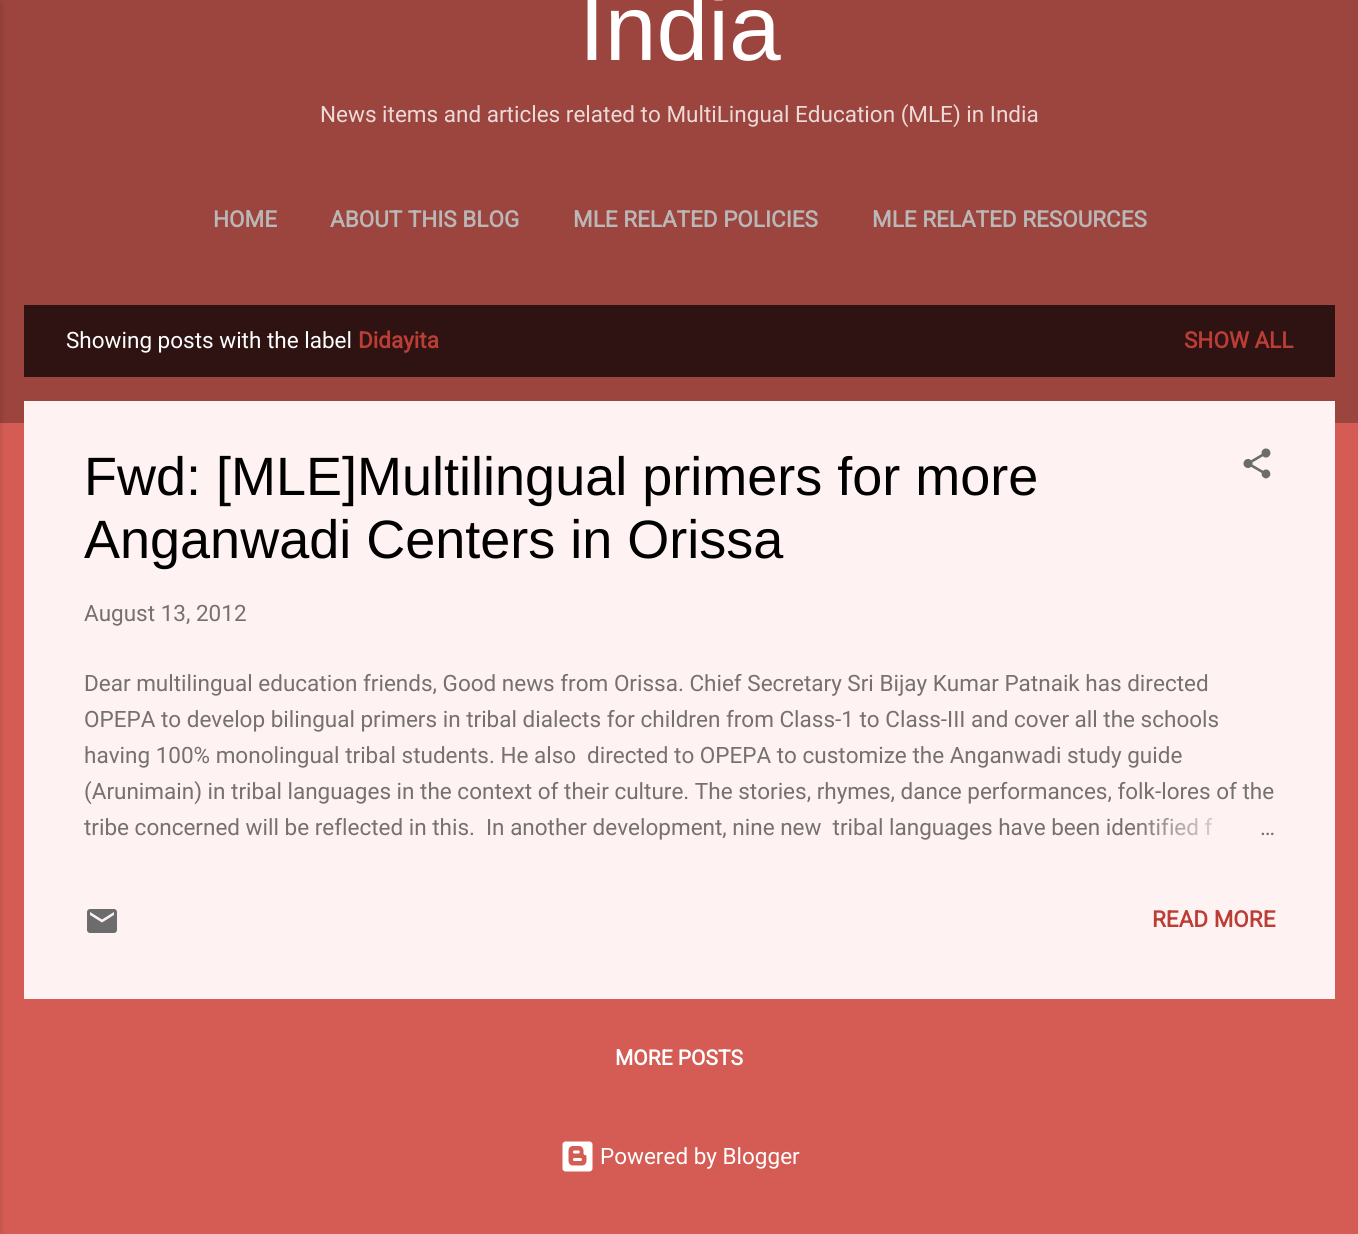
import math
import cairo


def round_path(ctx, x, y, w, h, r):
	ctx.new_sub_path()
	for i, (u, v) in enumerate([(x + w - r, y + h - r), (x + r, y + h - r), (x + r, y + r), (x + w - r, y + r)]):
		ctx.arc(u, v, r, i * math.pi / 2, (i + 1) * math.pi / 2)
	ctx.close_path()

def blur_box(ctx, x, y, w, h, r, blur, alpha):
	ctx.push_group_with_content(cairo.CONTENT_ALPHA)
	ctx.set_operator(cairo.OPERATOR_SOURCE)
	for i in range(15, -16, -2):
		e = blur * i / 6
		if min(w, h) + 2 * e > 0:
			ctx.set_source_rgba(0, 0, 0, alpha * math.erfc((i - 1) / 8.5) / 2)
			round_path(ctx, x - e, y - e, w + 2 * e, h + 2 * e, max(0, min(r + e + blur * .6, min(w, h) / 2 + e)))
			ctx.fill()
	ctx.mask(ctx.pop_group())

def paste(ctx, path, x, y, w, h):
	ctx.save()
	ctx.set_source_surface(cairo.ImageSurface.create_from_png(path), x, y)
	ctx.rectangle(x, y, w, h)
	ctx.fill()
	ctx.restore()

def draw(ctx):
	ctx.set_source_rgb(0.831, 0.361, 0.333)
	ctx.paint()
	ctx.set_source_rgb(0.612, 0.267, 0.243)
	ctx.rectangle(0, 0, 1358, 423)
	ctx.fill()
	ctx.set_source_rgb(0, 0, 0)
	blur_box(ctx, -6, 2, 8, 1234, 0, 2, 0.1)
	ctx.select_font_face('Liberation Sans')
	ctx.set_font_size(93)
	ctx.set_source_rgb(1, 1, 1)
	ctx.move_to(579, 60)
	ctx.show_text('India')
	ctx.select_font_face('Roboto')
	ctx.set_font_size(22.5)
	ctx.set_source_rgb(0.922, 0.855, 0.847)
	ctx.move_to(320, 122)
	ctx.show_text('News items and articles related to MultiLingual Education (MLE) in India')
	ctx.select_font_face('Roboto', cairo.FONT_SLANT_NORMAL, cairo.FONT_WEIGHT_BOLD)
	ctx.set_source_rgb(0.729, 0.718, 0.718)
	for x, y, s in [
		(213, 227, 'HOME'),
		(330, 227, 'ABOUT THIS BLOG'),
		(573, 227, 'MLE RELATED POLICIES'),
		(872, 227, 'MLE RELATED RESOURCES'),
	]:
		ctx.move_to(x, y)
		ctx.show_text(s)
	ctx.set_source_rgb(0.184, 0.078, 0.075)
	ctx.rectangle(24, 305, 1311, 72)
	ctx.fill()
	ctx.select_font_face('Roboto')
	ctx.set_source_rgb(1, 1, 1)
	ctx.move_to(66, 348)
	ctx.show_text('Showing posts with the label')
	ctx.select_font_face('Roboto', cairo.FONT_SLANT_NORMAL, cairo.FONT_WEIGHT_BOLD)
	ctx.set_source_rgb(0.733, 0.243, 0.212)
	ctx.move_to(358, 348)
	ctx.show_text('Didayita')
	ctx.move_to(1184, 348)
	ctx.show_text('SHOW ALL')
	ctx.set_source_rgb(0.996, 0.949, 0.949)
	ctx.rectangle(24, 401, 1311, 598)
	ctx.fill()
	ctx.select_font_face('Liberation Sans')
	ctx.set_font_size(54)
	ctx.set_source_rgb(0, 0, 0)
	ctx.move_to(84, 495)
	ctx.show_text('Fwd: [MLE]Multilingual primers for more')
	ctx.move_to(84, 558)
	ctx.show_text('Anganwadi Centers in Orissa')
	paste(ctx, 'media/1.png', 1243, 448, 28, 31)
	ctx.select_font_face('Roboto')
	ctx.set_font_size(22.5)
	ctx.set_source_rgb(0.463, 0.439, 0.439)
	for x, y, s in [
		(84, 621, 'August 13, 2012'),
		(84, 691, 'Dear multilingual education friends, Good news from Orissa. Chief Secretary Sri Bijay Kumar Patnaik has directed'),
		(84, 727, 'OPEPA to develop bilingual primers in tribal dialects for children from Class-1 to Class-III and cover all the schools'),
		(84, 763, 'having 100% monolingual tribal students. He also'),
		(587, 763, 'directed to OPEPA to customize the Anganwadi study guide'),
		(84, 799, '(Arunimain) in tribal languages in the context of their culture. The stories, rhymes, dance performances, folk-lores of the'),
		(84, 835, 'tribe concerned will be reflected in this.'),
		(486, 835, 'In another development, nine new  tribal languages have been identified f'),
	]:
		ctx.move_to(x, y)
		ctx.show_text(s)
	gradient = cairo.LinearGradient(1275, 828, 1131, 828)
	gradient.add_color_stop_rgba(0, 0.996, 0.949, 0.949, 1)
	gradient.add_color_stop_rgba(0.2, 0.996, 0.949, 0.949, 1)
	gradient.add_color_stop_rgba(1, 0.996, 0.949, 0.949, 0)
	ctx.set_source(gradient)
	ctx.rectangle(1133, 817, 80, 19)
	ctx.fill()
	ctx.set_source_rgb(0.463, 0.439, 0.439)
	ctx.move_to(1260, 835)
	ctx.show_text('…')
	paste(ctx, 'media/2.png', 87, 909, 30, 24)
	ctx.select_font_face('Roboto', cairo.FONT_SLANT_NORMAL, cairo.FONT_WEIGHT_BOLD)
	ctx.set_source_rgb(0.733, 0.243, 0.212)
	ctx.move_to(1152, 927)
	ctx.show_text('READ MORE')
	ctx.set_font_size(21)
	ctx.set_source_rgb(1, 1, 1)
	ctx.move_to(615, 1065)
	ctx.show_text('MORE POSTS')
	paste(ctx, 'media/3.png', 562, 1141, 31, 31)
	ctx.select_font_face('Roboto')
	ctx.set_font_size(22.5)
	ctx.move_to(600, 1164)
	ctx.show_text('Powered by Blogger')


surface = cairo.ImageSurface(cairo.FORMAT_RGB24, 1358, 1234)
ctx = cairo.Context(surface)
options = cairo.FontOptions()
options.set_hint_metrics(cairo.HINT_METRICS_OFF)
options.set_hint_style(cairo.HINT_STYLE_NONE)
ctx.set_font_options(options)
ctx.set_miter_limit(4)
draw(ctx)
surface.write_to_png('image.png')
